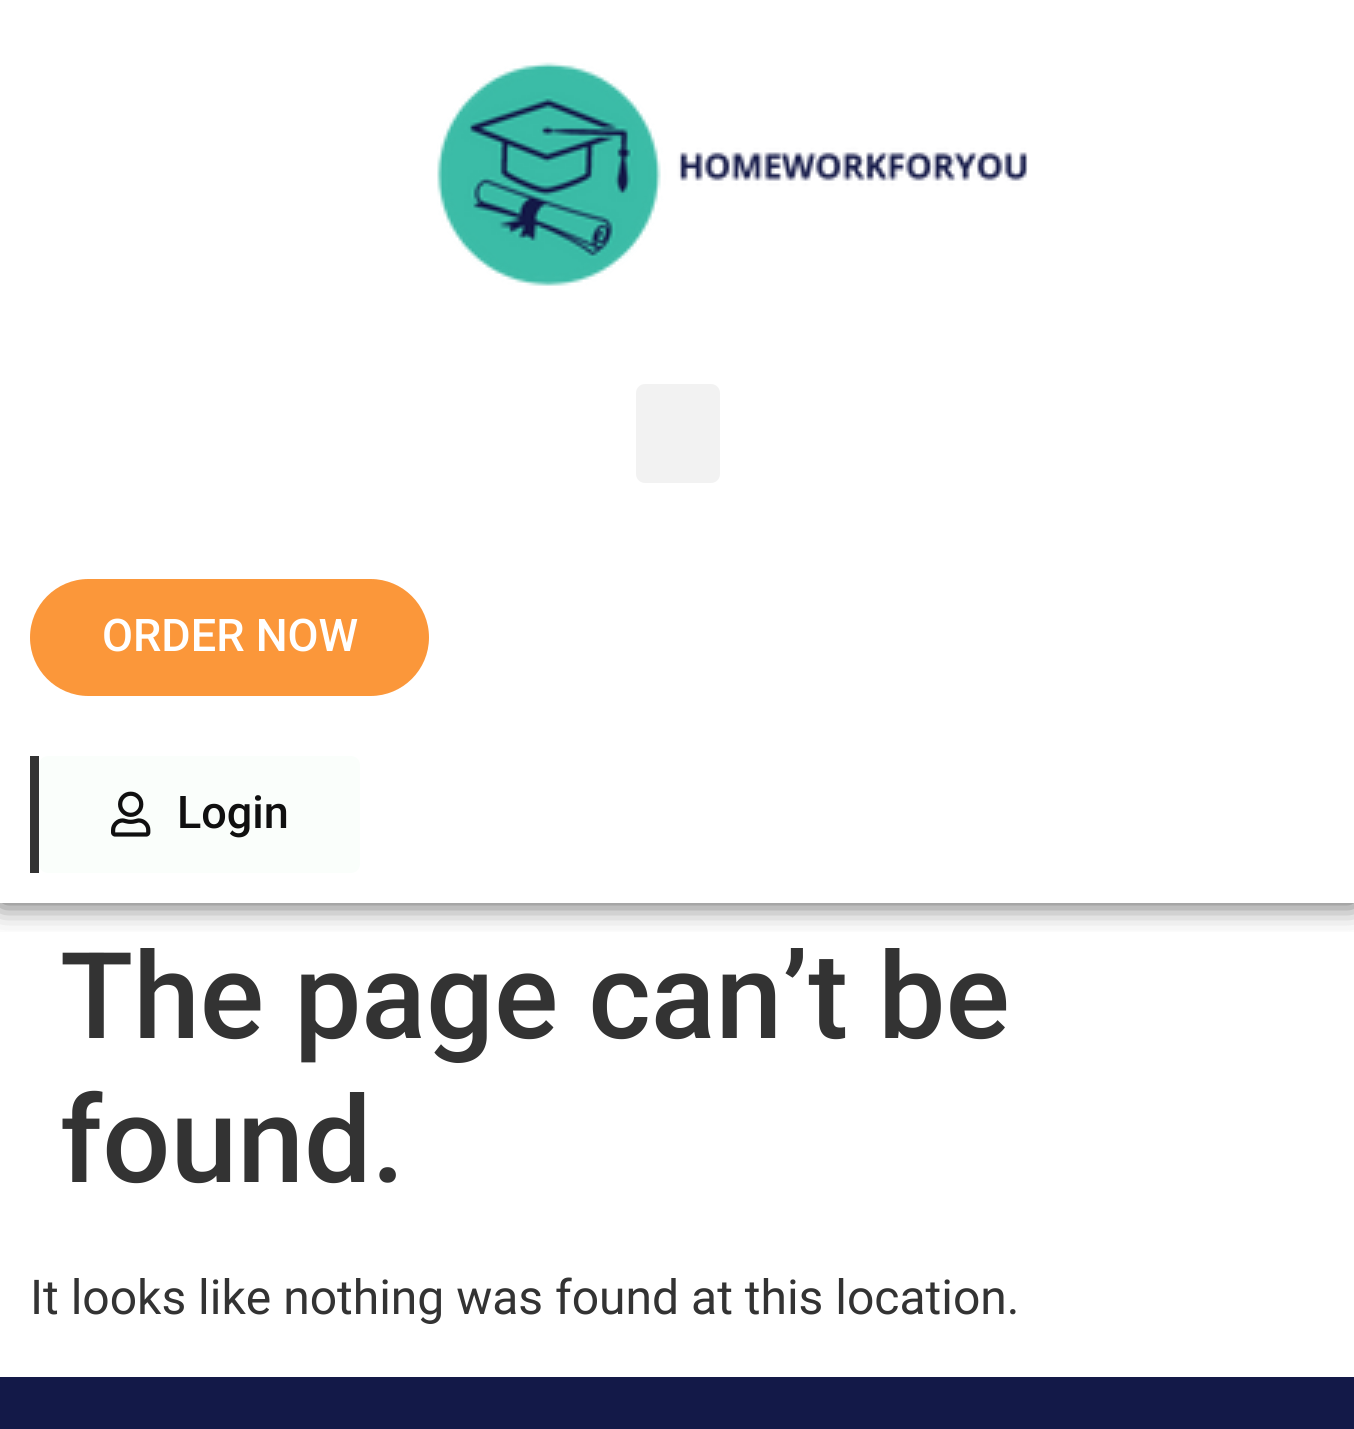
import math
import cairo


def round_path(ctx, x, y, w, h, r):
	ctx.new_sub_path()
	for i, (u, v) in enumerate([(x + w - r, y + h - r), (x + r, y + h - r), (x + r, y + r), (x + w - r, y + r)]):
		ctx.arc(u, v, r, i * math.pi / 2, (i + 1) * math.pi / 2)
	ctx.close_path()

def blur_box(ctx, x, y, w, h, r, blur, alpha):
	ctx.push_group_with_content(cairo.CONTENT_ALPHA)
	ctx.set_operator(cairo.OPERATOR_SOURCE)
	for i in range(15, -16, -2):
		e = blur * i / 6
		if min(w, h) + 2 * e > 0:
			ctx.set_source_rgba(0, 0, 0, alpha * math.erfc((i - 1) / 8.5) / 2)
			round_path(ctx, x - e, y - e, w + 2 * e, h + 2 * e, max(0, min(r + e + blur * .6, min(w, h) / 2 + e)))
			ctx.fill()
	ctx.mask(ctx.pop_group())

def paste(ctx, path, x, y, w, h):
	ctx.save()
	ctx.set_source_surface(cairo.ImageSurface.create_from_png(path), x, y)
	ctx.rectangle(x, y, w, h)
	ctx.fill()
	ctx.restore()

def draw(ctx):
	ctx.set_source_rgb(1, 1, 1)
	ctx.paint()
	ctx.save()
	ctx.rectangle(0, 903, 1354, 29)
	ctx.clip()
	ctx.set_source_rgb(0, 0, 0)
	blur_box(ctx, 0, 0, 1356, 903, 0, 15, 0.7)
	ctx.restore()
	paste(ctx, 'media/1.png', 437, 62, 591, 224)
	ctx.set_source_rgb(0.949, 0.949, 0.949)
	round_path(ctx, 636, 384, 84, 99, 9)
	ctx.fill()
	ctx.set_source_rgb(0.984, 0.592, 0.227)
	round_path(ctx, 30, 579, 399, 117, 58.5)
	ctx.fill()
	ctx.select_font_face('Roboto Medium')
	ctx.set_font_size(45)
	ctx.set_source_rgb(1, 1, 1)
	ctx.move_to(102, 651)
	ctx.show_text('ORDER NOW')
	ctx.set_source_rgb(0.2, 0.2, 0.2)
	ctx.rectangle(30, 756, 9, 117)
	ctx.fill()
	ctx.set_source_rgb(0.98, 0.996, 0.984)
	round_path(ctx, 39, 756, 321, 117, 9)
	ctx.fill()
	paste(ctx, 'media/2.png', 111, 791, 40, 46)
	ctx.set_source_rgb(0.063, 0.063, 0.063)
	ctx.move_to(177, 828)
	ctx.show_text('Login')
	ctx.set_font_size(120)
	ctx.set_source_rgb(0.2, 0.2, 0.2)
	ctx.move_to(60, 1038)
	ctx.show_text('The page can’t be')
	ctx.move_to(60, 1182)
	ctx.show_text('found.')
	ctx.select_font_face('Roboto')
	ctx.set_font_size(48)
	ctx.move_to(30, 1314)
	ctx.show_text('It looks like nothing was found at this location.')
	ctx.set_source_rgb(0.078, 0.098, 0.282)
	ctx.rectangle(0, 1377, 1354, 52)
	ctx.fill()


surface = cairo.ImageSurface(cairo.FORMAT_RGB24, 1354, 1429)
ctx = cairo.Context(surface)
options = cairo.FontOptions()
options.set_hint_metrics(cairo.HINT_METRICS_OFF)
options.set_hint_style(cairo.HINT_STYLE_NONE)
ctx.set_font_options(options)
ctx.set_miter_limit(4)
draw(ctx)
surface.write_to_png('image.png')
